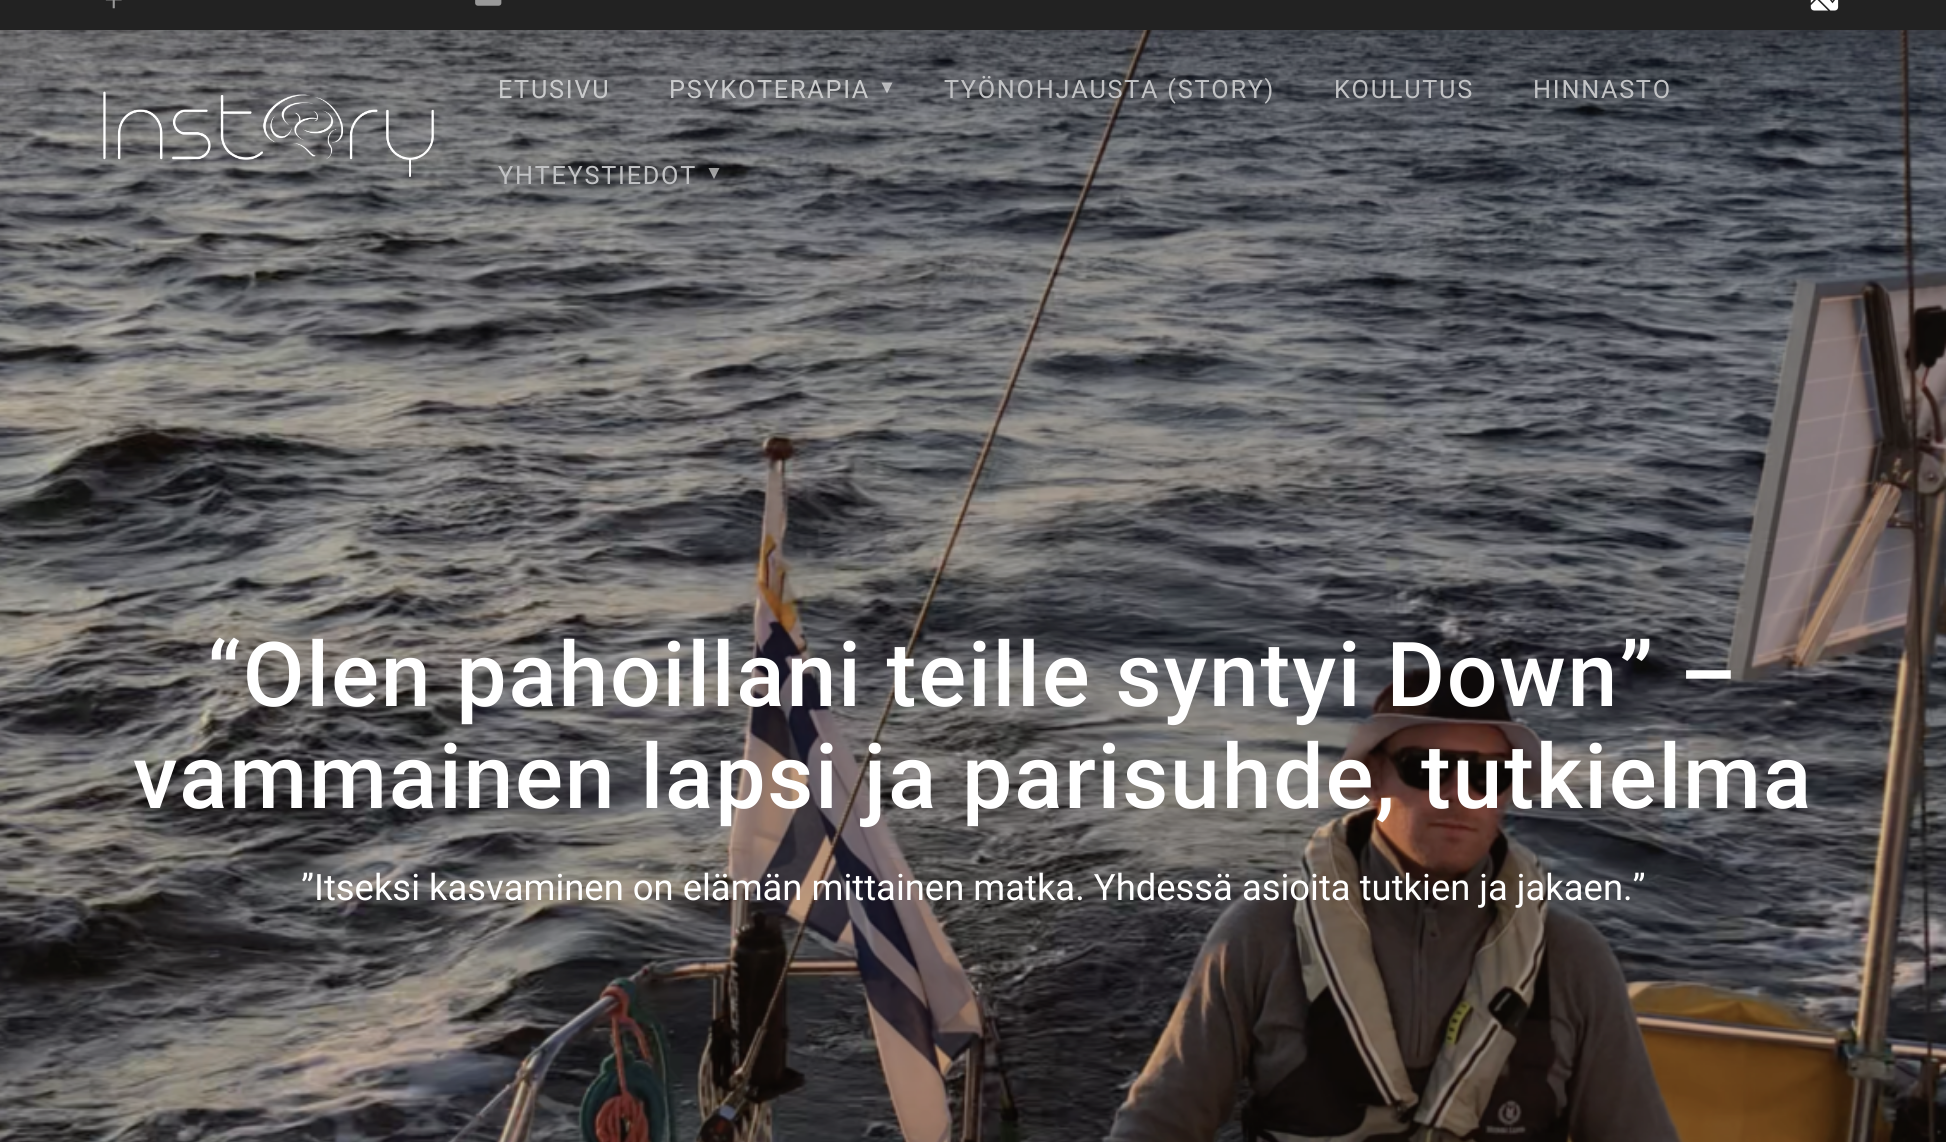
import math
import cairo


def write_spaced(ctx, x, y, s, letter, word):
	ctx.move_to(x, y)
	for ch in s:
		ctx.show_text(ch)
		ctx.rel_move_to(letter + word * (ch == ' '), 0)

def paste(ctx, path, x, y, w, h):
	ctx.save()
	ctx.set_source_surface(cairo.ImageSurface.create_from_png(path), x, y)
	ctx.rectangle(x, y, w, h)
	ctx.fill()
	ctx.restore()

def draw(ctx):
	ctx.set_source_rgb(1, 1, 1)
	ctx.paint()
	ctx.set_source_rgb(0.133, 0.133, 0.133)
	ctx.rectangle(0, 0, 1946, 30)
	ctx.fill()
	paste(ctx, 'media/1.png', 105, 0, 17, 9)
	paste(ctx, 'media/2.png', 475, 0, 27, 6)
	paste(ctx, 'media/3.png', 1810, 0, 29, 11)
	paste(ctx, 'media/5.png', 0, 30, 1946, 1112)
	paste(ctx, 'media/4.png', 103, 91, 331, 86)
	ctx.select_font_face('Roboto')
	ctx.set_font_size(25.25)
	ctx.set_source_rgb(0.792, 0.796, 0.8)
	write_spaced(ctx, 498, 98, 'ETUSIVU', 1.75, 0)
	write_spaced(ctx, 669, 98, 'PSYKOTERAPIA', 1.75, 0)
	ctx.set_source_rgba(1, 1, 1, 0.59)
	ctx.new_path()
	ctx.move_to(881.5, 82.5)
	ctx.line_to(887, 93.5)
	ctx.line_to(892.5, 82.5)
	ctx.close_path()
	ctx.fill()
	ctx.set_source_rgb(0.761, 0.765, 0.773)
	for x, y, s in [
		(944, 98, 'TYÖNOHJAUSTA (STORY)'),
		(1334, 98, 'KOULUTUS'),
		(1533, 98, 'HINNASTO'),
		(498, 184, 'YHTEYSTIEDOT'),
	]:
		write_spaced(ctx, x, y, s, 1.75, 0)
	ctx.set_source_rgba(1, 1, 1, 0.59)
	ctx.new_path()
	ctx.move_to(708.5, 168)
	ctx.line_to(714, 179)
	ctx.line_to(719.5, 168)
	ctx.close_path()
	ctx.fill()
	ctx.select_font_face('Roboto Medium')
	ctx.set_font_size(89.6)
	ctx.set_source_rgb(1, 1, 1)
	write_spaced(ctx, 207, 706, '“Olen pahoillani teille syntyi Down” –', 1.75, 0)
	write_spaced(ctx, 133, 808, 'vammainen lapsi ja parisuhde, tutkielma', 1.75, 0)
	ctx.select_font_face('Roboto')
	ctx.set_font_size(36.4)
	ctx.move_to(301, 900)
	ctx.show_text('”Itseksi kasvaminen on elämän mittainen matka. Yhdessä asioita tutkien ja jakaen.”')


surface = cairo.ImageSurface(cairo.FORMAT_RGB24, 1946, 1142)
ctx = cairo.Context(surface)
options = cairo.FontOptions()
options.set_hint_metrics(cairo.HINT_METRICS_OFF)
options.set_hint_style(cairo.HINT_STYLE_NONE)
ctx.set_font_options(options)
ctx.set_miter_limit(4)
draw(ctx)
surface.write_to_png('image.png')
